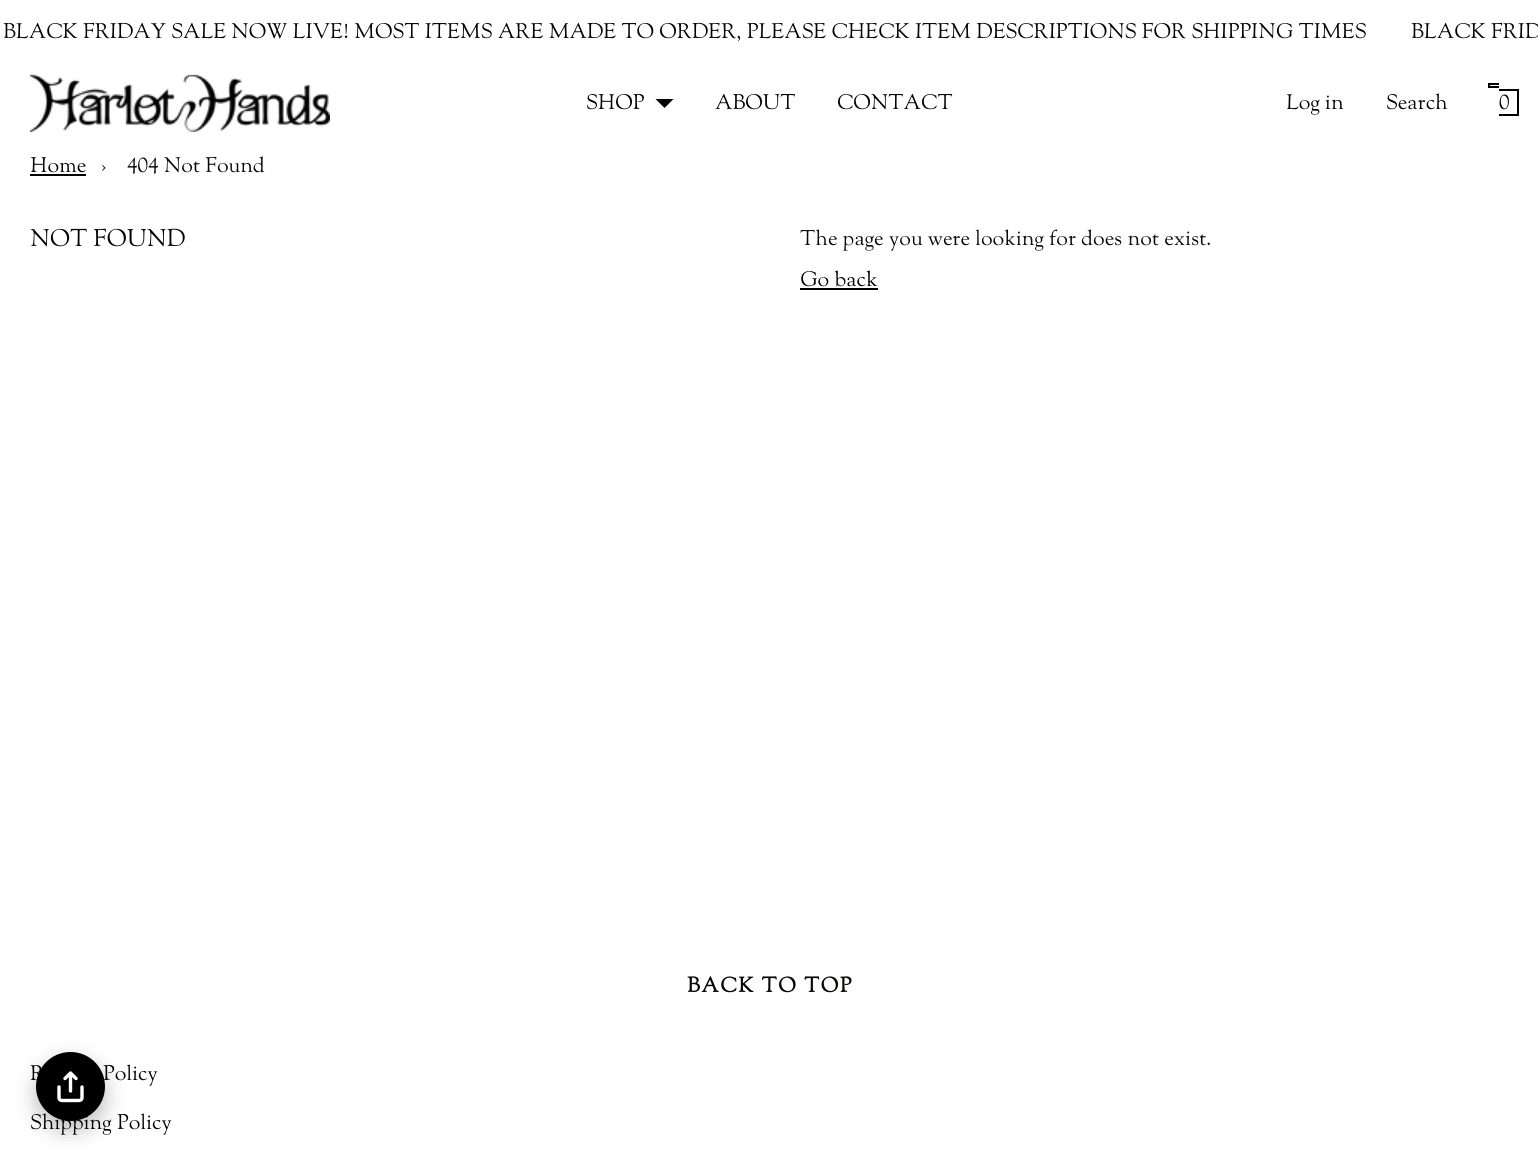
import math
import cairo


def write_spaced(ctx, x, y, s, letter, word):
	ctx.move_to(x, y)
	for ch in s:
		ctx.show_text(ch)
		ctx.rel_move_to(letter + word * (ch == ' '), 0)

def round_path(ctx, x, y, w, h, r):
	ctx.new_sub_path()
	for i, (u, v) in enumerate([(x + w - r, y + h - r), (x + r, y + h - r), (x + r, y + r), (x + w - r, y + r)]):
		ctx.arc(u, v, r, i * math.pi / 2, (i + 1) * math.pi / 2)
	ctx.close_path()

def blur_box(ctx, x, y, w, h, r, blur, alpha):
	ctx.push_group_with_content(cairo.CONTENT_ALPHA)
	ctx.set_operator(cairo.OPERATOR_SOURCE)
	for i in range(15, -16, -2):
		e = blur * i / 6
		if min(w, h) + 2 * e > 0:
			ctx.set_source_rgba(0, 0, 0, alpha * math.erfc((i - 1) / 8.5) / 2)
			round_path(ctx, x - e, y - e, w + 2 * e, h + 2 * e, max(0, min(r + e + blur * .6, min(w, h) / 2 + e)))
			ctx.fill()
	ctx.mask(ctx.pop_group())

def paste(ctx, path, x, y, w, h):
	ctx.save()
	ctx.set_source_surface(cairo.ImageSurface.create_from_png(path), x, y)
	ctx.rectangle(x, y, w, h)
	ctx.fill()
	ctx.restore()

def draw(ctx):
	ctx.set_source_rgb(1, 1, 1)
	ctx.paint()
	ctx.select_font_face('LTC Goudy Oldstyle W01')
	ctx.set_font_size(21)
	ctx.set_source_rgb(0, 0, 0)
	ctx.move_to(3, 38)
	ctx.show_text('BLACK FRIDAY SALE NOW LIVE! MOST ITEMS ARE MADE TO ORDER, PLEASE CHECK ITEM DESCRIPTIONS FOR SHIPPING TIMES')
	ctx.move_to(1411, 38)
	ctx.show_text('BLACK FRID')
	paste(ctx, 'media/1.png', 30, 74, 300, 58)
	ctx.move_to(586, 109)
	ctx.show_text('SHOP')
	ctx.new_path()
	ctx.move_to(655.5, 99)
	ctx.line_to(673.5, 99)
	ctx.line_to(664.5, 108)
	ctx.close_path()
	ctx.fill()
	for x, y, s in [
		(715, 109, 'ABOUT'),
		(837, 109, 'CONTACT'),
		(1286, 109, 'Log in'),
		(1386, 109, 'Search'),
		(1499, 109, '0'),
	]:
		ctx.move_to(x, y)
		ctx.show_text(s)
	ctx.rectangle(1488, 83, 11, 2)
	ctx.rectangle(1488, 86, 11, 2)
	ctx.rectangle(1488, 83, 2, 5)
	ctx.rectangle(1499, 89, 19, 2)
	ctx.rectangle(1517, 89, 2, 27)
	ctx.rectangle(1499, 114, 19, 2)
	ctx.fill()
	ctx.move_to(30, 172)
	ctx.show_text('Home')
	ctx.rectangle(30, 174, 56, 2)
	ctx.fill()
	ctx.set_source_rgb(0.043, 0.027, 0.027)
	ctx.move_to(101, 172)
	ctx.show_text('›')
	ctx.move_to(127, 172)
	ctx.show_text('404 Not Found')
	ctx.set_font_size(24)
	ctx.set_source_rgb(0, 0, 0)
	ctx.move_to(30, 246)
	ctx.show_text('NOT FOUND')
	ctx.set_font_size(21)
	ctx.set_source_rgb(0.043, 0.027, 0.027)
	ctx.move_to(800, 245)
	ctx.show_text('The page you were looking for does not exist.')
	ctx.set_source_rgb(0, 0, 0)
	ctx.move_to(800, 286)
	ctx.show_text('Go back')
	ctx.rectangle(800, 288, 78, 2)
	ctx.fill()
	ctx.select_font_face('LTC Goudy Oldstyle W01', cairo.FONT_SLANT_NORMAL, cairo.FONT_WEIGHT_BOLD)
	ctx.set_source_rgb(0.043, 0.027, 0.027)
	write_spaced(ctx, 687, 992, 'BACK TO TOP', 1.5, 0)
	ctx.select_font_face('LTC Goudy Oldstyle W01')
	ctx.set_source_rgb(0, 0, 0)
	for x, y, s in [
		(30, 1080, 'R'),
		(103, 1080, 'Policy'),
		(30, 1129, 'Shipping Policy'),
	]:
		ctx.move_to(x, y)
		ctx.show_text(s)
	ctx.set_source_rgb(0, 0, 0)
	blur_box(ctx, 36, 1061, 69, 69, 34.5, 10.5, 0.25)
	ctx.set_source_rgb(0, 0, 0)
	ctx.arc(70.5, 1086.5, 34.5, 0, 2 * math.pi)
	ctx.fill()
	ctx.new_path()
	ctx.move_to(59, 1087)
	ctx.line_to(59, 1098)
	ctx.curve_to(59, 1099.5, 60.5, 1100.5, 62, 1100.5)
	ctx.line_to(79, 1100.5)
	ctx.curve_to(80.5, 1100.5, 82, 1099.5, 82, 1098)
	ctx.line_to(82, 1087)
	ctx.move_to(76, 1078.5)
	ctx.line_to(70.5, 1073)
	ctx.line_to(65, 1078.5)
	ctx.move_to(70.5, 1073)
	ctx.line_to(70.5, 1091)
	ctx.set_source_rgb(1, 1, 1)
	ctx.set_line_width(3.4)
	ctx.set_line_cap(cairo.LINE_CAP_ROUND)
	ctx.set_line_join(cairo.LINE_JOIN_ROUND)
	ctx.stroke()


surface = cairo.ImageSurface(cairo.FORMAT_RGB24, 1538, 1156)
ctx = cairo.Context(surface)
options = cairo.FontOptions()
options.set_hint_metrics(cairo.HINT_METRICS_OFF)
options.set_hint_style(cairo.HINT_STYLE_NONE)
ctx.set_font_options(options)
ctx.set_miter_limit(4)
draw(ctx)
surface.write_to_png('image.png')
